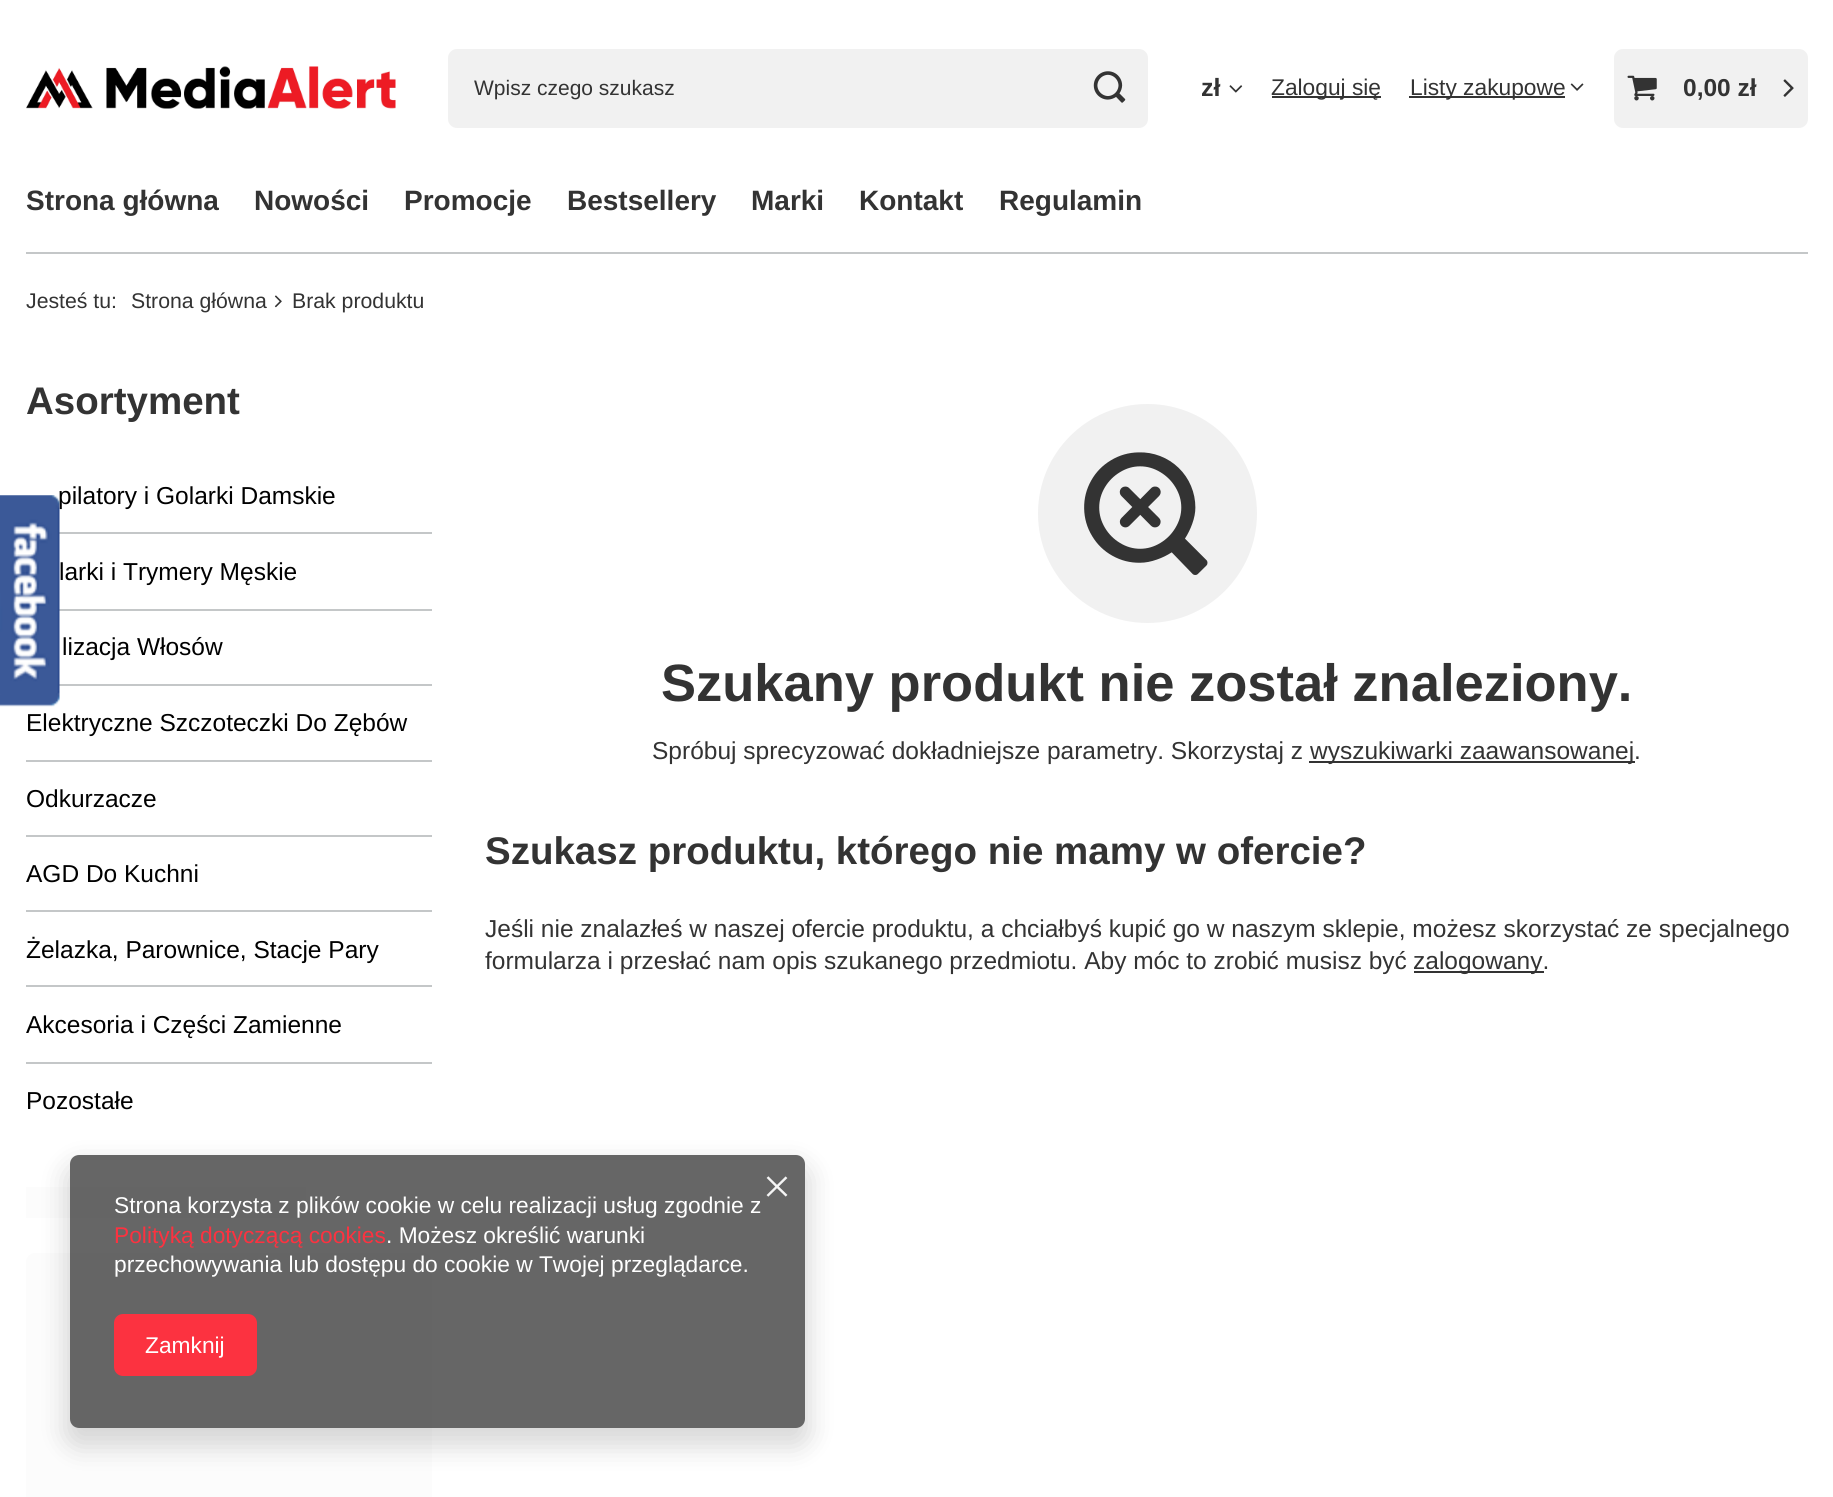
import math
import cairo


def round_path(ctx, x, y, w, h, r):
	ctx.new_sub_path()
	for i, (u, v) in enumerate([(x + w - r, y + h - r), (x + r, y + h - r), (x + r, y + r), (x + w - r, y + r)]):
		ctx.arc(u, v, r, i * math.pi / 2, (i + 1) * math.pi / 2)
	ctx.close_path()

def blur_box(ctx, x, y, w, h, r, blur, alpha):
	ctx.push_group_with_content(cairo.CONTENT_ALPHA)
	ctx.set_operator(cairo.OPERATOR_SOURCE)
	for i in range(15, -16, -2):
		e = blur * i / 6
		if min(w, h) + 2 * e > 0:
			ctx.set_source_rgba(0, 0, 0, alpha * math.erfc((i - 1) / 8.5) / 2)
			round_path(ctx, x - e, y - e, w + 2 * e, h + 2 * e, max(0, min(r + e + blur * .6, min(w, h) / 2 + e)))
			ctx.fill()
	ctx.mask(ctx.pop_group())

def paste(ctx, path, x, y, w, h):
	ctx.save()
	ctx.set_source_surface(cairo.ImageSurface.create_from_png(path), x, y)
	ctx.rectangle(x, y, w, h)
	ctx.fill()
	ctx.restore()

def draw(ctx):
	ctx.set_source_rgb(1, 1, 1)
	ctx.paint()
	paste(ctx, 'media/1.png', 26, 66, 370, 43)
	ctx.set_source_rgb(0.945, 0.945, 0.945)
	round_path(ctx, 448, 49, 700, 79, 9)
	ctx.fill()
	ctx.select_font_face('Liberation Sans')
	ctx.set_font_size(21)
	ctx.set_source_rgb(0.2, 0.2, 0.2)
	ctx.move_to(474, 95)
	ctx.show_text('Wpisz czego szukasz')
	paste(ctx, 'media/2.png', 1093, 71, 33, 32)
	ctx.select_font_face('Liberation Sans', cairo.FONT_SLANT_NORMAL, cairo.FONT_WEIGHT_BOLD)
	ctx.set_font_size(25)
	ctx.move_to(1201, 96)
	ctx.show_text('zł')
	paste(ctx, 'media/3.png', 1229, 85, 14, 8)
	ctx.rectangle(1272, 96, 109, 2)
	ctx.fill()
	ctx.select_font_face('Liberation Sans')
	ctx.set_font_size(22.75)
	ctx.move_to(1271, 95)
	ctx.show_text('Zaloguj się')
	ctx.rectangle(1409, 96, 156, 2)
	ctx.fill()
	ctx.move_to(1410, 95)
	ctx.show_text('Listy zakupowe')
	paste(ctx, 'media/4.png', 1570, 83, 14, 8)
	ctx.set_source_rgb(0.945, 0.945, 0.945)
	round_path(ctx, 1614, 49, 194, 79, 9)
	ctx.fill()
	paste(ctx, 'media/5.png', 1627, 75, 30, 26)
	ctx.select_font_face('Liberation Sans', cairo.FONT_SLANT_NORMAL, cairo.FONT_WEIGHT_BOLD)
	ctx.set_font_size(24.5)
	ctx.set_source_rgb(0.2, 0.2, 0.2)
	ctx.move_to(1683, 96)
	ctx.show_text('0,00 zł')
	paste(ctx, 'media/6.png', 1783, 79, 11, 18)
	ctx.set_source_rgb(0.769, 0.78, 0.784)
	ctx.rectangle(26, 252, 1782, 2)
	ctx.fill()
	ctx.set_font_size(28)
	ctx.set_source_rgb(0.2, 0.2, 0.2)
	for x, y, s in [
		(26, 210, 'Strona główna'),
		(254, 210, 'Nowości'),
		(404, 210, 'Promocje'),
		(567, 210, 'Bestsellery'),
		(751, 210, 'Marki'),
		(859, 210, 'Kontakt'),
		(999, 210, 'Regulamin'),
	]:
		ctx.move_to(x, y)
		ctx.show_text(s)
	ctx.select_font_face('Liberation Sans')
	ctx.set_font_size(21.25)
	ctx.move_to(26, 308)
	ctx.show_text('Jesteś tu:')
	ctx.move_to(131, 308)
	ctx.show_text('Strona główna')
	paste(ctx, 'media/7.png', 274, 295, 8, 13)
	ctx.move_to(292, 308)
	ctx.show_text('Brak produktu')
	ctx.select_font_face('Liberation Sans', cairo.FONT_SLANT_NORMAL, cairo.FONT_WEIGHT_BOLD)
	ctx.set_font_size(38.5)
	ctx.move_to(26, 414)
	ctx.show_text('Asortyment')
	ctx.set_source_rgb(0.769, 0.78, 0.784)
	ctx.rectangle(59, 532, 373, 2)
	ctx.fill()
	ctx.select_font_face('Liberation Sans')
	ctx.set_font_size(24.5)
	ctx.set_source_rgb(0, 0, 0)
	ctx.move_to(58, 504)
	ctx.show_text('pilatory i Golarki Damskie')
	ctx.set_source_rgb(0.769, 0.78, 0.784)
	ctx.rectangle(59, 609, 373, 2)
	ctx.fill()
	ctx.set_source_rgb(0, 0, 0)
	ctx.move_to(59, 580)
	ctx.show_text('larki i Trymery Męskie')
	ctx.set_source_rgb(0.769, 0.78, 0.784)
	ctx.rectangle(59, 684, 373, 2)
	ctx.fill()
	ctx.set_source_rgb(0, 0, 0)
	ctx.move_to(62, 655)
	ctx.show_text('lizacja Włosów')
	ctx.set_source_rgb(0.769, 0.78, 0.784)
	ctx.rectangle(26, 760, 406, 2)
	ctx.fill()
	ctx.set_source_rgb(0, 0, 0)
	ctx.move_to(26, 731)
	ctx.show_text('Elektryczne Szczoteczki Do Zębów')
	ctx.set_source_rgb(0.769, 0.78, 0.784)
	ctx.rectangle(26, 835, 406, 2)
	ctx.fill()
	ctx.set_source_rgb(0, 0, 0)
	ctx.move_to(26, 807)
	ctx.show_text('Odkurzacze')
	ctx.set_source_rgb(0.769, 0.78, 0.784)
	ctx.rectangle(26, 910, 406, 2)
	ctx.fill()
	ctx.set_source_rgb(0, 0, 0)
	ctx.move_to(26, 882)
	ctx.show_text('AGD Do Kuchni')
	ctx.set_source_rgb(0.769, 0.78, 0.784)
	ctx.rectangle(26, 985, 406, 2)
	ctx.fill()
	ctx.set_source_rgb(0, 0, 0)
	ctx.move_to(26, 958)
	ctx.show_text('Żelazka, Parownice, Stacje Pary')
	ctx.set_source_rgb(0.769, 0.78, 0.784)
	ctx.rectangle(26, 1062, 406, 2)
	ctx.fill()
	ctx.set_source_rgb(0, 0, 0)
	ctx.move_to(26, 1033)
	ctx.show_text('Akcesoria i Części Zamienne')
	ctx.move_to(26, 1109)
	ctx.show_text('Pozostałe')
	ctx.set_source_rgb(0.988, 0.988, 0.988)
	ctx.rectangle(26, 1187, 280, 31)
	ctx.fill()
	round_path(ctx, 26, 1253, 406, 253, 9)
	ctx.fill()
	ctx.set_source_rgb(0.945, 0.945, 0.945)
	ctx.arc(1147.5, 513.5, 109.5, 0, 2 * math.pi)
	ctx.fill()
	paste(ctx, 'media/8.png', 1084, 452, 124, 123)
	ctx.select_font_face('Liberation Sans', cairo.FONT_SLANT_NORMAL, cairo.FONT_WEIGHT_BOLD)
	ctx.set_font_size(52.5)
	ctx.set_source_rgb(0.2, 0.2, 0.2)
	ctx.move_to(661, 701)
	ctx.show_text('Szukany produkt nie został znaleziony.')
	ctx.select_font_face('Liberation Sans')
	ctx.set_font_size(24.5)
	ctx.move_to(652, 759)
	ctx.show_text('Spróbuj sprecyzować dokładniejsze parametry. Skorzystaj z')
	ctx.rectangle(1309, 761, 326, 2)
	ctx.fill()
	ctx.move_to(1310, 759)
	ctx.show_text('wyszukiwarki zaawansowanej.')
	ctx.select_font_face('Liberation Sans', cairo.FONT_SLANT_NORMAL, cairo.FONT_WEIGHT_BOLD)
	ctx.set_font_size(38.5)
	ctx.move_to(485, 864)
	ctx.show_text('Szukasz produktu, którego nie mamy w ofercie?')
	ctx.select_font_face('Liberation Sans')
	ctx.set_font_size(24.5)
	ctx.move_to(485, 937)
	ctx.show_text('Jeśli nie znalazłeś w naszej ofercie produktu, a chciałbyś kupić go w naszym sklepie, możesz skorzystać ze specjalnego')
	ctx.move_to(485, 969)
	ctx.show_text('formularza i przesłać nam opis szukanego przedmiotu. Aby móc to zrobić musisz być')
	ctx.rectangle(1414, 971, 130, 2)
	ctx.fill()
	ctx.move_to(1413, 969)
	ctx.show_text('zalogowany.')
	paste(ctx, 'media/9.png', 0, 495, 60, 212)
	ctx.save()
	ctx.set_fill_rule(cairo.FILL_RULE_EVEN_ODD)
	ctx.new_path()
	ctx.move_to(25, 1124)
	ctx.line_to(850, 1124)
	ctx.line_to(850, 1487)
	ctx.line_to(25, 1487)
	ctx.close_path()
	ctx.move_to(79, 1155)
	ctx.line_to(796, 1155)
	ctx.curve_to(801, 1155, 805, 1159, 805, 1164)
	ctx.line_to(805, 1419)
	ctx.curve_to(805, 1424, 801, 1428, 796, 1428)
	ctx.line_to(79, 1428)
	ctx.curve_to(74, 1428, 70, 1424, 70, 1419)
	ctx.line_to(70, 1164)
	ctx.curve_to(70, 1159, 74, 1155, 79, 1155)
	ctx.close_path()
	ctx.clip()
	ctx.set_source_rgb(0, 0, 0)
	blur_box(ctx, 65, 1164, 745, 283, 14, 13, 0.15)
	ctx.restore()
	ctx.set_source_rgba(0, 0, 0, 0.6)
	round_path(ctx, 70, 1155, 735, 273, 9)
	ctx.fill()
	paste(ctx, 'media/10.png', 766, 1176, 22, 21)
	ctx.set_font_size(22.75)
	ctx.set_source_rgb(1, 1, 1)
	ctx.move_to(114, 1213)
	ctx.show_text('Strona korzysta z plików cookie w celu realizacji usług zgodnie z')
	ctx.set_source_rgb(0.988, 0.196, 0.251)
	ctx.move_to(114, 1243)
	ctx.show_text('Polityką dotyczącą cookies')
	ctx.set_source_rgb(1, 1, 1)
	ctx.move_to(386, 1243)
	ctx.show_text('. Możesz określić warunki')
	ctx.move_to(114, 1272)
	ctx.show_text('przechowywania lub dostępu do cookie w Twojej przeglądarce.')
	ctx.set_source_rgb(0.988, 0.196, 0.251)
	round_path(ctx, 114, 1314, 143, 62, 9)
	ctx.fill()
	ctx.set_source_rgb(1, 1, 1)
	ctx.move_to(145, 1353)
	ctx.show_text('Zamknij')


surface = cairo.ImageSurface(cairo.FORMAT_RGB24, 1833, 1497)
ctx = cairo.Context(surface)
options = cairo.FontOptions()
options.set_hint_metrics(cairo.HINT_METRICS_OFF)
options.set_hint_style(cairo.HINT_STYLE_NONE)
ctx.set_font_options(options)
ctx.set_miter_limit(4)
draw(ctx)
surface.write_to_png('image.png')
